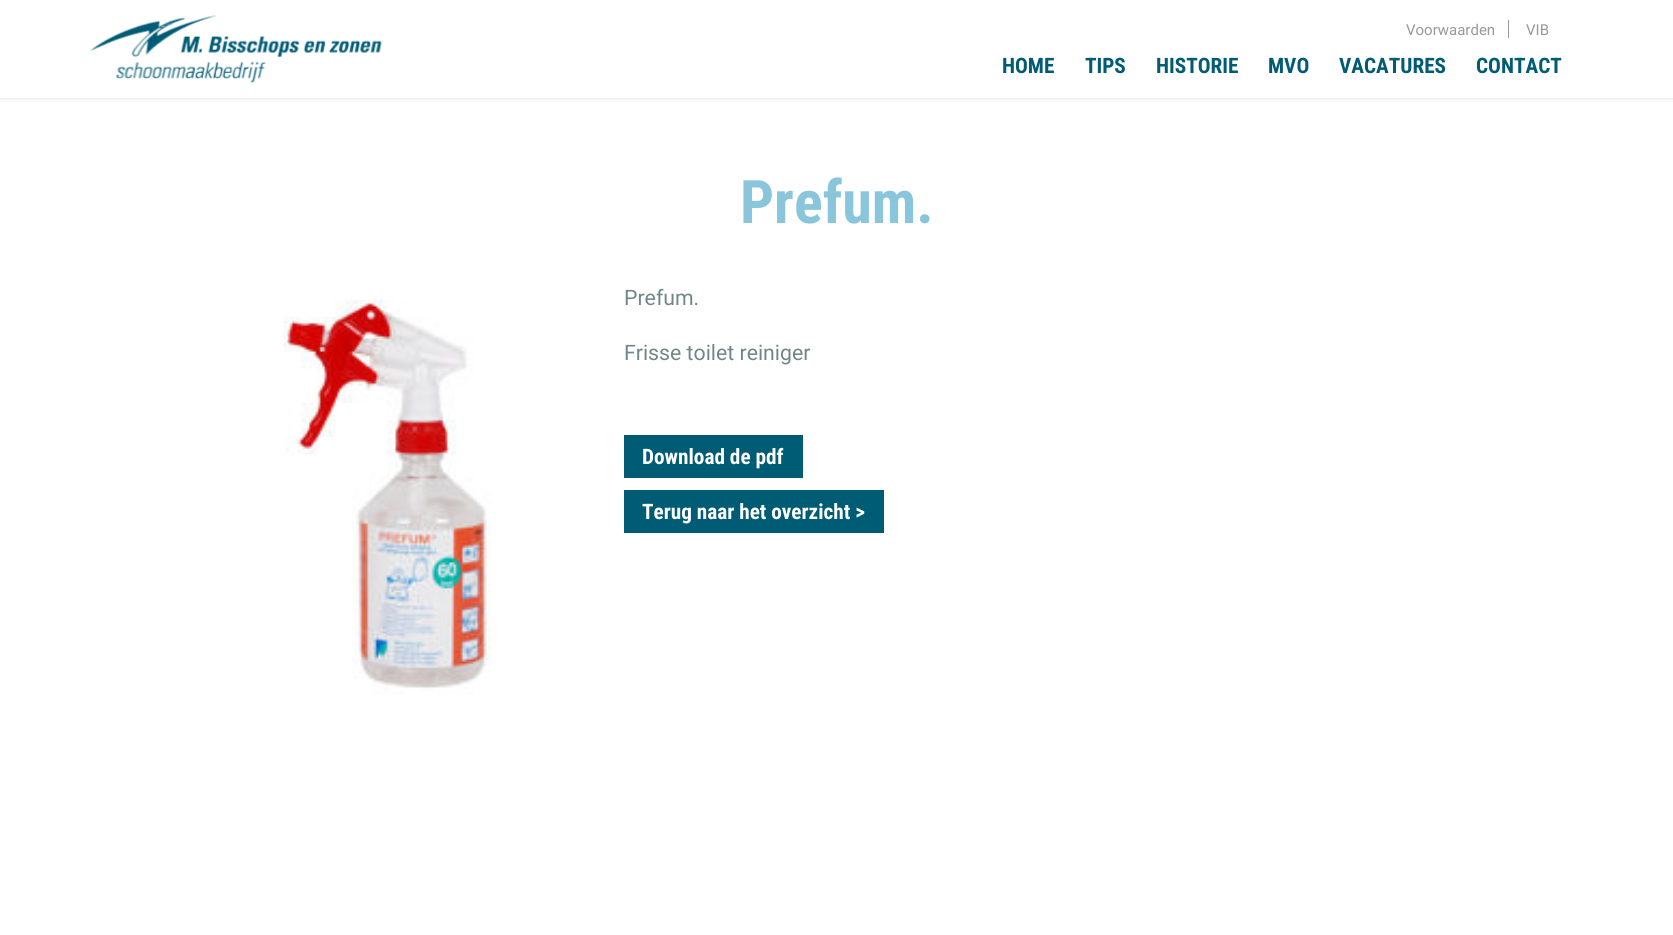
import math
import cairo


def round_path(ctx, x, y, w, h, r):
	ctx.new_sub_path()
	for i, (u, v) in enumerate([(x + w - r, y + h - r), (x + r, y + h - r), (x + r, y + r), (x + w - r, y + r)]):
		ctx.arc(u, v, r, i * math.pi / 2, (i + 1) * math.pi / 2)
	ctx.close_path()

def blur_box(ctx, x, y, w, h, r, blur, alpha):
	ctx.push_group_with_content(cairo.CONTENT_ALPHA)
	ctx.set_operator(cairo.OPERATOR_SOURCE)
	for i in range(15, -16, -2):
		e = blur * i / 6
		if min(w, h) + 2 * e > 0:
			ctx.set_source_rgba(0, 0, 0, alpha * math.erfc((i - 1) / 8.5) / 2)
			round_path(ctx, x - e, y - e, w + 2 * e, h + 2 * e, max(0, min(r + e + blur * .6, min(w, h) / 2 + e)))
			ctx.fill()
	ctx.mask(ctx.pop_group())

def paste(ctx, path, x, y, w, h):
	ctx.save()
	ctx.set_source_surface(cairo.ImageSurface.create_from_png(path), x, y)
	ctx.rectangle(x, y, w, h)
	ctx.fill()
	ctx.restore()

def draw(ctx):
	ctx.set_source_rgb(1, 1, 1)
	ctx.paint()
	ctx.set_source_rgb(0, 0, 0)
	blur_box(ctx, -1, -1, 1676, 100, 0, 3, 0.1)
	ctx.set_source_rgb(1, 1, 1)
	ctx.rectangle(0, 0, 1673, 98)
	ctx.fill()
	paste(ctx, 'media/1.png', 90, 15, 293, 68)
	ctx.set_source_rgb(0.6, 0.6, 0.6)
	ctx.rectangle(1508, 20, 1, 18)
	ctx.fill()
	ctx.select_font_face('Roboto')
	ctx.set_font_size(15)
	ctx.move_to(1406, 35)
	ctx.show_text('Voorwaarden')
	ctx.move_to(1526, 35)
	ctx.show_text('VIB')
	ctx.select_font_face('Roboto Condensed', cairo.FONT_SLANT_NORMAL, cairo.FONT_WEIGHT_BOLD)
	ctx.set_font_size(21.25)
	ctx.set_source_rgb(0, 0.357, 0.459)
	for x, y, s in [
		(1002, 73, 'HOME'),
		(1085, 73, 'TIPS'),
		(1156, 73, 'HISTORIE'),
		(1268, 73, 'MVO'),
		(1339, 73, 'VACATURES'),
		(1476, 73, 'CONTACT'),
	]:
		ctx.move_to(x, y)
		ctx.show_text(s)
	ctx.set_font_size(60)
	ctx.set_source_rgb(0.537, 0.776, 0.859)
	ctx.move_to(740, 223)
	ctx.show_text('Prefum.')
	paste(ctx, 'media/2.png', 283, 299, 208, 396)
	ctx.select_font_face('Roboto')
	ctx.set_font_size(21.25)
	ctx.set_source_rgb(0.443, 0.529, 0.529)
	ctx.move_to(624, 305)
	ctx.show_text('Prefum.')
	ctx.move_to(624, 360)
	ctx.show_text('Frisse toilet reiniger')
	ctx.set_source_rgb(0, 0.357, 0.459)
	ctx.rectangle(624, 435, 179, 43)
	ctx.fill()
	ctx.select_font_face('Roboto Condensed', cairo.FONT_SLANT_NORMAL, cairo.FONT_WEIGHT_BOLD)
	ctx.set_source_rgb(1, 1, 1)
	ctx.move_to(642, 464)
	ctx.show_text('Download de pdf')
	ctx.set_source_rgb(0, 0.357, 0.459)
	ctx.rectangle(624, 490, 260, 43)
	ctx.fill()
	ctx.set_source_rgb(1, 1, 1)
	ctx.move_to(642, 519)
	ctx.show_text('Terug naar het overzicht >')


surface = cairo.ImageSurface(cairo.FORMAT_RGB24, 1673, 935)
ctx = cairo.Context(surface)
options = cairo.FontOptions()
options.set_hint_metrics(cairo.HINT_METRICS_OFF)
options.set_hint_style(cairo.HINT_STYLE_NONE)
ctx.set_font_options(options)
ctx.set_miter_limit(4)
draw(ctx)
surface.write_to_png('image.png')
